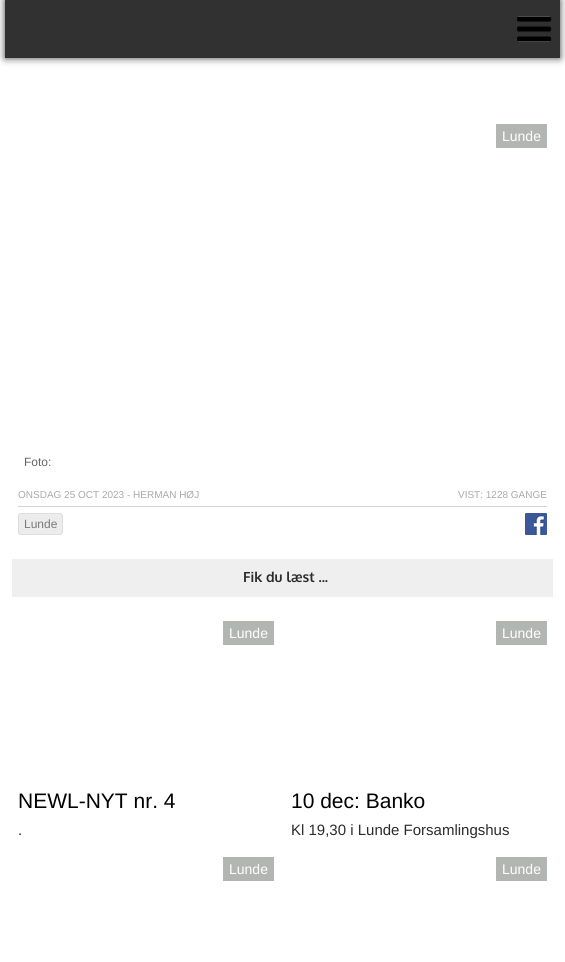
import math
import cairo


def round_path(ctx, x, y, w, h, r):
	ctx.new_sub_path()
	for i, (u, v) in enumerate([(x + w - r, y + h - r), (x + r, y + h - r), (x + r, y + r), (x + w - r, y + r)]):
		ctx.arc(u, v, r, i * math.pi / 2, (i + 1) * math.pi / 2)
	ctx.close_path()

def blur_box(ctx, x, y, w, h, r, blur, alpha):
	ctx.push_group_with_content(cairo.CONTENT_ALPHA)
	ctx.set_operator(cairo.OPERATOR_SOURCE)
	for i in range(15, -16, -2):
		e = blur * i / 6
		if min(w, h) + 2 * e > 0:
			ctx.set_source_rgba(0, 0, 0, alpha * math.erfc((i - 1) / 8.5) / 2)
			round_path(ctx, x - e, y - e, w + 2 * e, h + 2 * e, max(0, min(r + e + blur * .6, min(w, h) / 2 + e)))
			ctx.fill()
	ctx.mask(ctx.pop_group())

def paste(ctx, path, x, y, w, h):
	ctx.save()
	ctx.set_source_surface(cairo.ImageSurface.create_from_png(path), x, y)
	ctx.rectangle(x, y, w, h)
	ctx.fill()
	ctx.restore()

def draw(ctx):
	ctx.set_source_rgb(1, 1, 1)
	ctx.paint()
	ctx.set_source_rgb(0, 0, 0)
	blur_box(ctx, 5, 0, 555, 58, 0, 4, 0.75)
	ctx.set_source_rgb(0.192, 0.192, 0.192)
	ctx.rectangle(5, 0, 555, 58)
	ctx.fill()
	paste(ctx, 'media/1.png', 517, 16, 35, 26)
	ctx.set_source_rgb(0.698, 0.714, 0.702)
	ctx.rectangle(496, 124, 51, 24)
	ctx.fill()
	ctx.select_font_face('Liberation Sans')
	ctx.set_font_size(14)
	ctx.set_source_rgb(1, 1, 1)
	ctx.move_to(502, 141)
	ctx.show_text('Lunde')
	ctx.set_font_size(12)
	ctx.set_source_rgb(0.396, 0.396, 0.396)
	ctx.move_to(24, 466)
	ctx.show_text('Foto:')
	ctx.set_font_size(10)
	ctx.set_source_rgb(0.663, 0.663, 0.663)
	ctx.move_to(18, 498)
	ctx.show_text('ONSDAG 25 OCT 2023 - HERMAN HØJ')
	ctx.move_to(458, 498)
	ctx.show_text('VIST: 1228 GANGE')
	ctx.set_source_rgb(0.824, 0.824, 0.824)
	ctx.rectangle(18, 506, 529, 1)
	ctx.fill()
	ctx.set_source_rgb(0.922, 0.922, 0.922)
	round_path(ctx, 18.5, 513.5, 44, 21, 2.5)
	ctx.fill_preserve()
	ctx.set_source_rgb(0.871, 0.871, 0.871)
	ctx.set_line_width(1)
	ctx.stroke()
	ctx.set_font_size(12)
	ctx.set_source_rgb(0.478, 0.478, 0.478)
	ctx.move_to(24, 528)
	ctx.show_text('Lunde')
	paste(ctx, 'media/2.png', 525, 513, 22, 22)
	ctx.set_source_rgb(0.937, 0.937, 0.937)
	ctx.rectangle(12, 559, 541, 38)
	ctx.fill()
	ctx.select_font_face('Oxygen', cairo.FONT_SLANT_NORMAL, cairo.FONT_WEIGHT_BOLD)
	ctx.set_font_size(14)
	ctx.set_source_rgb(0.169, 0.169, 0.169)
	ctx.move_to(243, 582)
	ctx.show_text('Fik du læst ...')
	ctx.set_source_rgb(0.698, 0.714, 0.702)
	ctx.rectangle(223, 621, 51, 24)
	ctx.fill()
	ctx.select_font_face('Liberation Sans')
	ctx.set_source_rgb(1, 1, 1)
	ctx.move_to(229, 638)
	ctx.show_text('Lunde')
	ctx.set_font_size(21)
	ctx.set_source_rgb(0, 0, 0)
	ctx.move_to(18, 808)
	ctx.show_text('NEWL-NYT nr. 4')
	ctx.set_font_size(15)
	ctx.set_source_rgb(0.169, 0.169, 0.169)
	ctx.move_to(18, 835)
	ctx.show_text('.')
	ctx.set_source_rgb(0.698, 0.714, 0.702)
	ctx.rectangle(496, 621, 51, 24)
	ctx.fill()
	ctx.set_font_size(14)
	ctx.set_source_rgb(1, 1, 1)
	ctx.move_to(502, 638)
	ctx.show_text('Lunde')
	ctx.set_font_size(21)
	ctx.set_source_rgb(0, 0, 0)
	ctx.move_to(291, 808)
	ctx.show_text('10 dec: Banko')
	ctx.set_font_size(15)
	ctx.set_source_rgb(0.169, 0.169, 0.169)
	ctx.move_to(291, 835)
	ctx.show_text('Kl 19,30 i Lunde Forsamlingshus')
	ctx.set_source_rgb(0.698, 0.714, 0.702)
	ctx.rectangle(223, 857, 51, 24)
	ctx.fill()
	ctx.set_font_size(14)
	ctx.set_source_rgb(1, 1, 1)
	ctx.move_to(229, 874)
	ctx.show_text('Lunde')
	ctx.set_source_rgb(0.698, 0.714, 0.702)
	ctx.rectangle(496, 857, 51, 24)
	ctx.fill()
	ctx.set_source_rgb(1, 1, 1)
	ctx.move_to(502, 874)
	ctx.show_text('Lunde')


surface = cairo.ImageSurface(cairo.FORMAT_RGB24, 565, 962)
ctx = cairo.Context(surface)
options = cairo.FontOptions()
options.set_hint_metrics(cairo.HINT_METRICS_OFF)
options.set_hint_style(cairo.HINT_STYLE_NONE)
ctx.set_font_options(options)
ctx.set_miter_limit(4)
draw(ctx)
surface.write_to_png('image.png')
